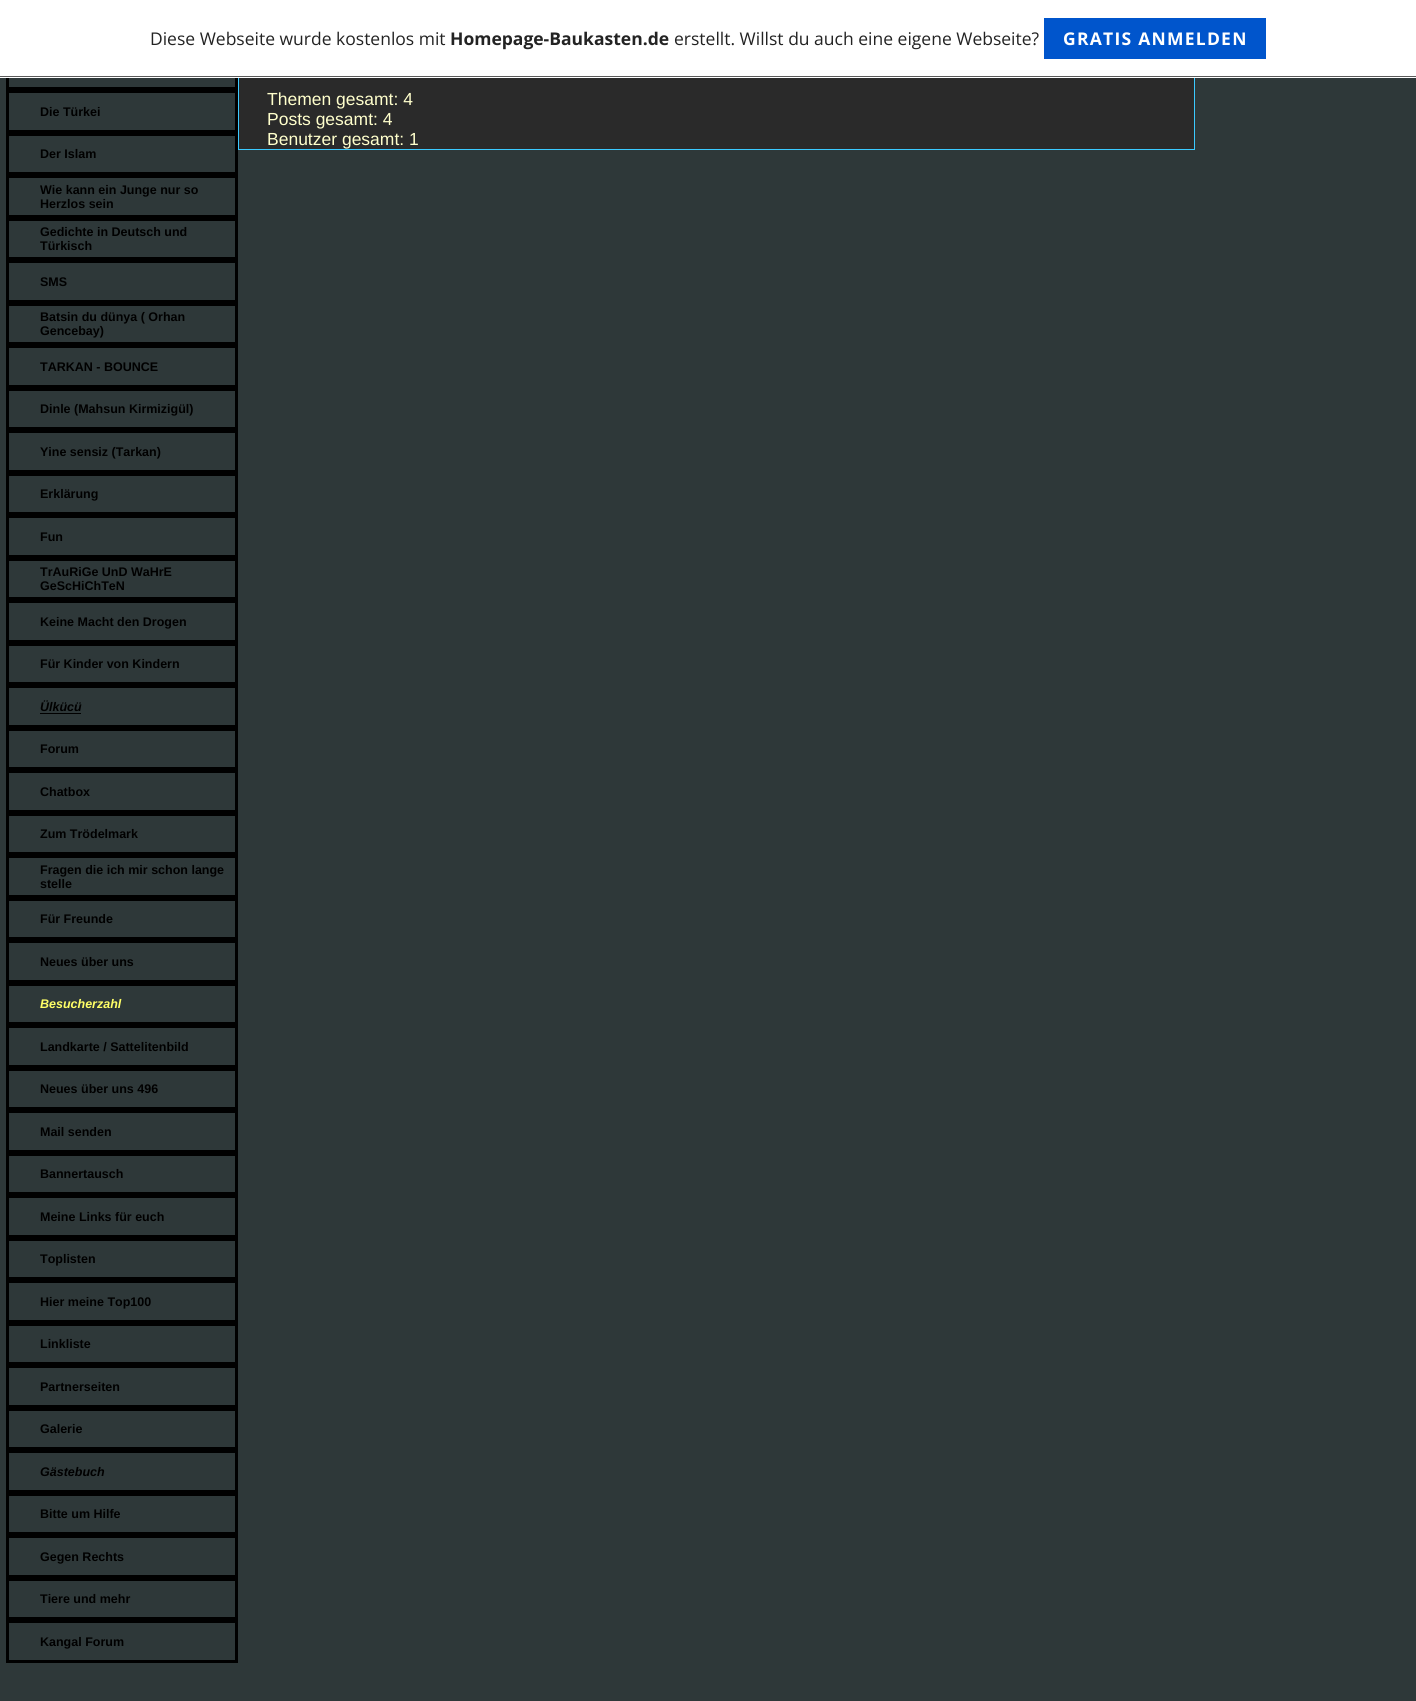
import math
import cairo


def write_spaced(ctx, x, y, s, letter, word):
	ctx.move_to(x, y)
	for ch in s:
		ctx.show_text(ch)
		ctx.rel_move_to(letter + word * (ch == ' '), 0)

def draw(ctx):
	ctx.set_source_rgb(0.18, 0.22, 0.224)
	ctx.paint()
	ctx.rectangle(7.5, 49.5, 229, 39)
	ctx.set_source_rgb(0, 0, 0)
	ctx.set_line_width(3)
	ctx.stroke()
	ctx.set_source_rgb(0.165, 0.165, 0.165)
	ctx.rectangle(239, 78, 955, 71)
	ctx.fill()
	ctx.rectangle(238.5, -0.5, 956, 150)
	ctx.set_source_rgb(0.231, 0.792, 1)
	ctx.set_line_width(1)
	ctx.stroke()
	ctx.set_source_rgb(1, 1, 1)
	ctx.rectangle(0, 0, 1416, 78)
	ctx.fill()
	ctx.set_source_rgb(0.353, 0.353, 0.353)
	ctx.rectangle(0, 76, 1416, 1)
	ctx.fill()
	ctx.select_font_face('Open Sans')
	ctx.set_font_size(17.5)
	ctx.set_source_rgb(0.137, 0.137, 0.137)
	ctx.move_to(150, 45)
	ctx.show_text('Diese Webseite wurde kostenlos mit')
	ctx.select_font_face('Open Sans', cairo.FONT_SLANT_NORMAL, cairo.FONT_WEIGHT_BOLD)
	ctx.move_to(450, 45)
	ctx.show_text('Homepage-Baukasten.de')
	ctx.select_font_face('Open Sans')
	ctx.move_to(674, 45)
	ctx.show_text('erstellt. Willst du auch eine eigene Webseite?')
	ctx.set_source_rgb(0, 0.333, 0.8)
	ctx.rectangle(1044, 18, 222, 41)
	ctx.fill()
	ctx.select_font_face('Open Sans', cairo.FONT_SLANT_NORMAL, cairo.FONT_WEIGHT_BOLD)
	ctx.set_source_rgb(1, 1, 1)
	write_spaced(ctx, 1063, 45, 'GRATIS ANMELDEN', 1.25, 0)
	ctx.rectangle(7.5, 91.5, 229, 40)
	ctx.set_source_rgb(0, 0, 0)
	ctx.set_line_width(3)
	ctx.stroke()
	ctx.select_font_face('Liberation Sans', cairo.FONT_SLANT_NORMAL, cairo.FONT_WEIGHT_BOLD)
	ctx.set_font_size(12.5)
	ctx.move_to(40, 116)
	ctx.show_text('Die Türkei')
	ctx.rectangle(7.5, 134.5, 229, 39)
	ctx.stroke()
	ctx.move_to(40, 158)
	ctx.show_text('Der Islam')
	ctx.rectangle(7.5, 176.5, 229, 40)
	ctx.stroke()
	ctx.move_to(40, 194)
	ctx.show_text('Wie kann ein Junge nur so')
	ctx.move_to(40, 208)
	ctx.show_text('Herzlos sein')
	ctx.rectangle(7.5, 219.5, 229, 39)
	ctx.stroke()
	ctx.move_to(40, 236)
	ctx.show_text('Gedichte in Deutsch und')
	ctx.move_to(40, 250)
	ctx.show_text('Türkisch')
	ctx.rectangle(7.5, 261.5, 229, 40)
	ctx.stroke()
	ctx.move_to(40, 286)
	ctx.show_text('SMS')
	ctx.rectangle(7.5, 304.5, 229, 39)
	ctx.stroke()
	ctx.move_to(40, 321)
	ctx.show_text('Batsin du dünya ( Orhan')
	ctx.move_to(40, 335)
	ctx.show_text('Gencebay)')
	ctx.rectangle(7.5, 346.5, 229, 40)
	ctx.stroke()
	ctx.move_to(40, 371)
	ctx.show_text('TARKAN - BOUNCE')
	ctx.rectangle(7.5, 389.5, 229, 39)
	ctx.stroke()
	ctx.move_to(40, 413)
	ctx.show_text('Dinle (Mahsun Kirmizigül)')
	ctx.rectangle(7.5, 431.5, 229, 40)
	ctx.stroke()
	ctx.move_to(40, 456)
	ctx.show_text('Yine sensiz (Tarkan)')
	ctx.rectangle(7.5, 474.5, 229, 39)
	ctx.stroke()
	ctx.move_to(40, 498)
	ctx.show_text('Erklärung')
	ctx.rectangle(7.5, 516.5, 229, 40)
	ctx.stroke()
	ctx.move_to(40, 541)
	ctx.show_text('Fun')
	ctx.rectangle(7.5, 559.5, 229, 39)
	ctx.stroke()
	ctx.move_to(40, 576)
	ctx.show_text('TrAuRiGe UnD WaHrE')
	ctx.move_to(40, 590)
	ctx.show_text('GeScHiChTeN')
	ctx.rectangle(7.5, 601.5, 229, 40)
	ctx.stroke()
	ctx.move_to(40, 626)
	ctx.show_text('Keine Macht den Drogen')
	ctx.rectangle(7.5, 644.5, 229, 39)
	ctx.stroke()
	ctx.move_to(40, 668)
	ctx.show_text('Für Kinder von Kindern')
	ctx.rectangle(7.5, 686.5, 229, 40)
	ctx.stroke()
	ctx.select_font_face('Liberation Sans', cairo.FONT_SLANT_ITALIC, cairo.FONT_WEIGHT_BOLD)
	ctx.move_to(40, 711)
	ctx.show_text('Ülkücü')
	ctx.rectangle(40, 713, 41, 1)
	ctx.fill()
	ctx.rectangle(7.5, 729.5, 229, 39)
	ctx.stroke()
	ctx.select_font_face('Liberation Sans', cairo.FONT_SLANT_NORMAL, cairo.FONT_WEIGHT_BOLD)
	ctx.move_to(40, 753)
	ctx.show_text('Forum')
	ctx.rectangle(7.5, 771.5, 229, 40)
	ctx.stroke()
	ctx.move_to(40, 796)
	ctx.show_text('Chatbox')
	ctx.rectangle(7.5, 814.5, 229, 39)
	ctx.stroke()
	ctx.move_to(40, 838)
	ctx.show_text('Zum Trödelmark')
	ctx.rectangle(7.5, 856.5, 229, 40)
	ctx.stroke()
	ctx.move_to(40, 874)
	ctx.show_text('Fragen die ich mir schon lange')
	ctx.move_to(40, 888)
	ctx.show_text('stelle')
	ctx.rectangle(7.5, 899.5, 229, 39)
	ctx.stroke()
	ctx.move_to(40, 923)
	ctx.show_text('Für Freunde')
	ctx.rectangle(7.5, 941.5, 229, 40)
	ctx.stroke()
	ctx.move_to(40, 966)
	ctx.show_text('Neues über uns')
	ctx.rectangle(7.5, 984.5, 229, 39)
	ctx.stroke()
	ctx.select_font_face('Liberation Sans', cairo.FONT_SLANT_ITALIC, cairo.FONT_WEIGHT_BOLD)
	ctx.set_source_rgb(1, 1, 0.4)
	ctx.move_to(40, 1008)
	ctx.show_text('Besucherzahl')
	ctx.rectangle(7.5, 1026.5, 229, 40)
	ctx.set_source_rgb(0, 0, 0)
	ctx.stroke()
	ctx.select_font_face('Liberation Sans', cairo.FONT_SLANT_NORMAL, cairo.FONT_WEIGHT_BOLD)
	ctx.move_to(40, 1051)
	ctx.show_text('Landkarte / Sattelitenbild')
	ctx.rectangle(7.5, 1069.5, 229, 39)
	ctx.stroke()
	ctx.move_to(40, 1093)
	ctx.show_text('Neues über uns 496')
	ctx.rectangle(7.5, 1111.5, 229, 40)
	ctx.stroke()
	ctx.move_to(40, 1136)
	ctx.show_text('Mail senden')
	ctx.rectangle(7.5, 1154.5, 229, 39)
	ctx.stroke()
	ctx.move_to(40, 1178)
	ctx.show_text('Bannertausch')
	ctx.rectangle(7.5, 1196.5, 229, 40)
	ctx.stroke()
	ctx.move_to(40, 1221)
	ctx.show_text('Meine Links für euch')
	ctx.rectangle(7.5, 1239.5, 229, 39)
	ctx.stroke()
	ctx.move_to(40, 1263)
	ctx.show_text('Toplisten')
	ctx.rectangle(7.5, 1281.5, 229, 40)
	ctx.stroke()
	ctx.move_to(40, 1306)
	ctx.show_text('Hier meine Top100')
	ctx.rectangle(7.5, 1324.5, 229, 39)
	ctx.stroke()
	ctx.move_to(40, 1348)
	ctx.show_text('Linkliste')
	ctx.rectangle(7.5, 1366.5, 229, 40)
	ctx.stroke()
	ctx.move_to(40, 1391)
	ctx.show_text('Partnerseiten')
	ctx.rectangle(7.5, 1409.5, 229, 39)
	ctx.stroke()
	ctx.move_to(40, 1433)
	ctx.show_text('Galerie')
	ctx.rectangle(7.5, 1451.5, 229, 40)
	ctx.stroke()
	ctx.select_font_face('Liberation Sans', cairo.FONT_SLANT_ITALIC, cairo.FONT_WEIGHT_BOLD)
	ctx.move_to(40, 1476)
	ctx.show_text('Gästebuch')
	ctx.rectangle(7.5, 1494.5, 229, 39)
	ctx.stroke()
	ctx.select_font_face('Liberation Sans', cairo.FONT_SLANT_NORMAL, cairo.FONT_WEIGHT_BOLD)
	ctx.move_to(40, 1518)
	ctx.show_text('Bitte um Hilfe')
	ctx.rectangle(7.5, 1536.5, 229, 40)
	ctx.stroke()
	ctx.move_to(40, 1561)
	ctx.show_text('Gegen Rechts')
	ctx.rectangle(7.5, 1579.5, 229, 39)
	ctx.stroke()
	ctx.move_to(40, 1603)
	ctx.show_text('Tiere und mehr')
	ctx.rectangle(7.5, 1621.5, 229, 40)
	ctx.stroke()
	ctx.move_to(40, 1646)
	ctx.show_text('Kangal Forum')
	ctx.select_font_face('Liberation Sans')
	ctx.set_font_size(17.5)
	ctx.set_source_rgb(1, 1, 0.8)
	for x, y, s in [
		(267, 105, 'Themen gesamt: 4'),
		(267, 125, 'Posts gesamt: 4'),
		(267, 145, 'Benutzer gesamt: 1'),
	]:
		ctx.move_to(x, y)
		ctx.show_text(s)


surface = cairo.ImageSurface(cairo.FORMAT_RGB24, 1416, 1701)
ctx = cairo.Context(surface)
options = cairo.FontOptions()
options.set_hint_metrics(cairo.HINT_METRICS_OFF)
options.set_hint_style(cairo.HINT_STYLE_NONE)
ctx.set_font_options(options)
ctx.set_miter_limit(4)
draw(ctx)
surface.write_to_png('image.png')
